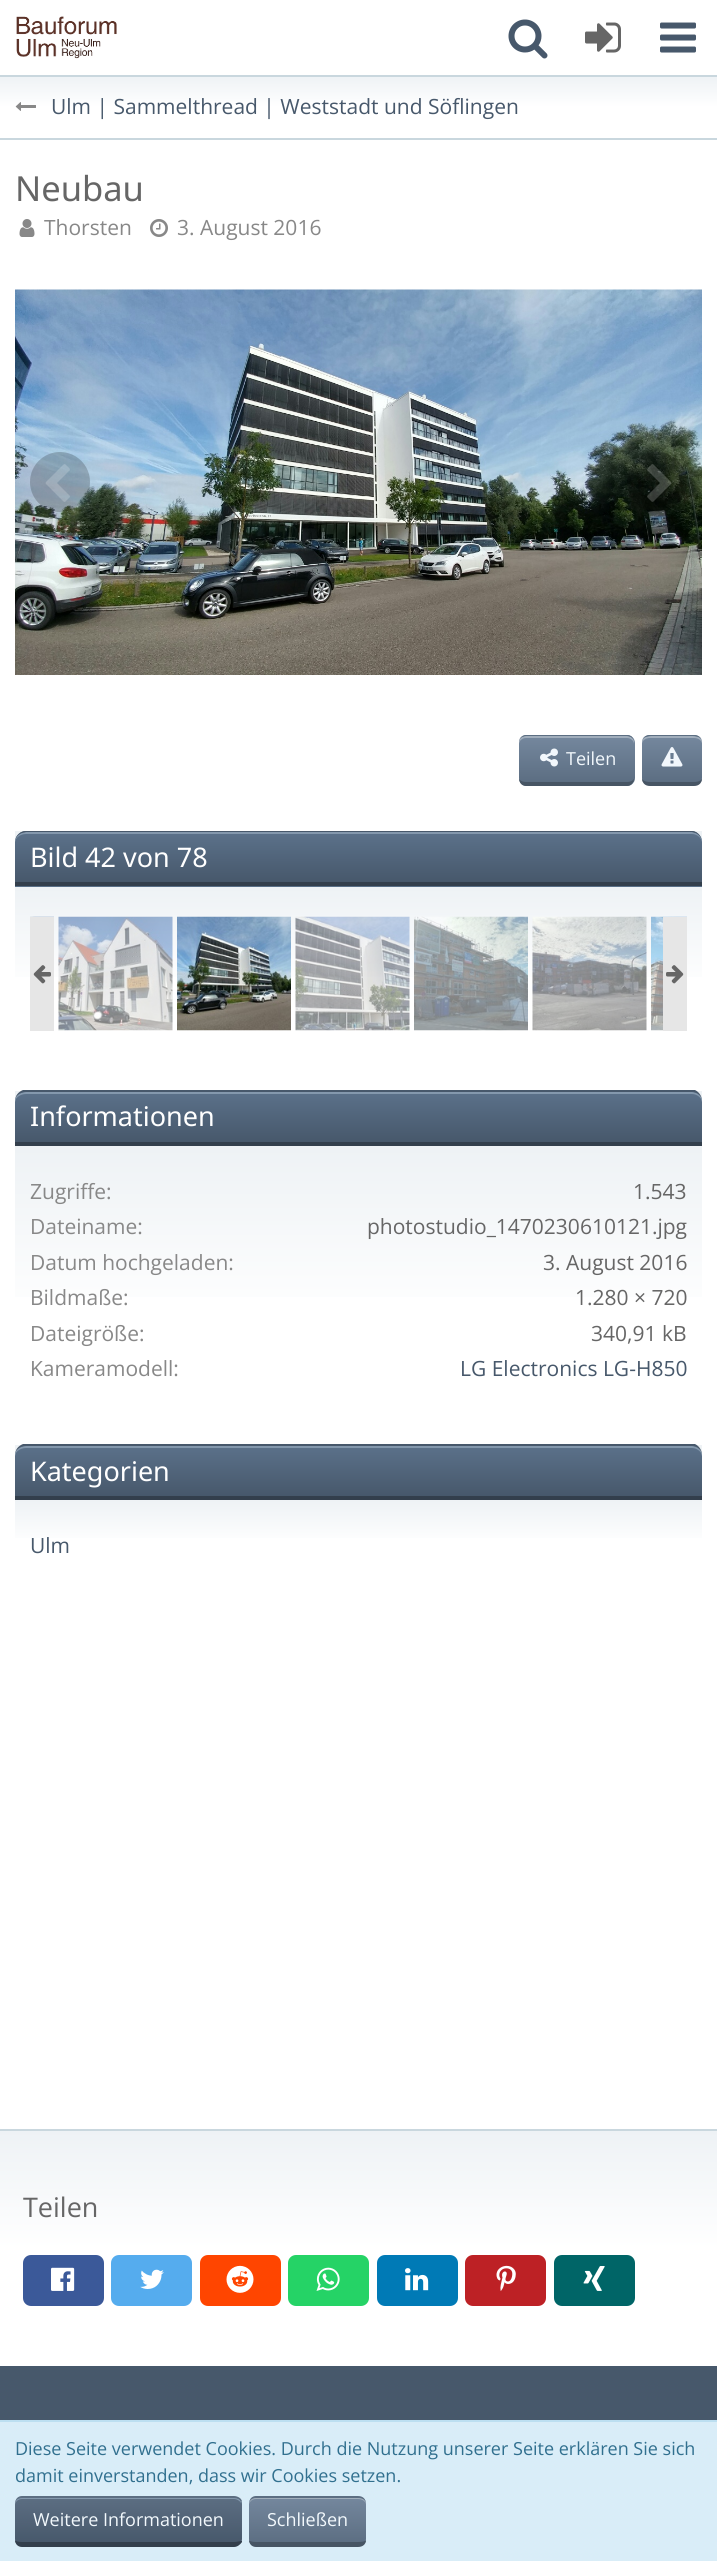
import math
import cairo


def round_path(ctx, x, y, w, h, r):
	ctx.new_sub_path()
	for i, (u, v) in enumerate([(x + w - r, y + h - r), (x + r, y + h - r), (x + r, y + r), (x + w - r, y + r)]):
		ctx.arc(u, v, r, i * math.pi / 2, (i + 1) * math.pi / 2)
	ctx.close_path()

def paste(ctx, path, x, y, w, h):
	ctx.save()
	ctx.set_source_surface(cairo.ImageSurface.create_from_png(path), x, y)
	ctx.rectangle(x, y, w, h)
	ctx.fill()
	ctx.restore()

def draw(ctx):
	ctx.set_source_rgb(0.278, 0.345, 0.42)
	ctx.paint()
	ctx.set_source_rgb(1, 1, 1)
	ctx.rectangle(0, 0, 717, 75)
	ctx.fill()
	paste(ctx, 'media/1.png', 16, 16, 101, 43)
	paste(ctx, 'media/2.png', 508, 19, 40, 40)
	paste(ctx, 'media/3.png', 585, 22, 36, 31)
	paste(ctx, 'media/4.png', 660, 22, 36, 31)
	gradient = cairo.LinearGradient(359, 76, 359, 138)
	gradient.add_color_stop_rgba(0, 0.933, 0.949, 0.961, 1)
	gradient.add_color_stop_rgba(0.5, 1, 1, 1, 1)
	ctx.set_source(gradient)
	ctx.rectangle(0, 77, 717, 61)
	ctx.fill()
	ctx.set_source_rgb(0.788, 0.843, 0.871)
	ctx.rectangle(0, 75, 717, 2)
	ctx.fill()
	ctx.rectangle(0, 138, 717, 2)
	ctx.fill()
	paste(ctx, 'media/5.png', 15, 102, 21, 9)
	ctx.select_font_face('Open Sans')
	ctx.set_font_size(21)
	ctx.set_source_rgb(0.278, 0.345, 0.42)
	ctx.move_to(51, 114)
	ctx.show_text('Ulm | Sammelthread | Weststadt und Söflingen')
	ctx.set_source_rgb(1, 1, 1)
	ctx.rectangle(0, 140, 717, 1989)
	ctx.fill()
	ctx.select_font_face('Noto Sans')
	ctx.set_font_size(34.5)
	ctx.set_source_rgb(0.4, 0.4, 0.4)
	ctx.move_to(15, 201)
	ctx.show_text('Neubau')
	paste(ctx, 'media/6.png', 19, 219, 16, 18)
	ctx.select_font_face('Open Sans')
	ctx.set_font_size(21)
	ctx.set_source_rgb(0.533, 0.533, 0.533)
	ctx.move_to(44, 235)
	ctx.show_text('Thorsten')
	paste(ctx, 'media/7.png', 150, 219, 18, 18)
	ctx.move_to(177, 235)
	ctx.show_text('3. August 2016')
	paste(ctx, 'media/8.png', 15, 289, 687, 386)
	ctx.set_source_rgba(0, 0, 0, 0.2)
	ctx.arc(60, 482, 30, 0, 2 * math.pi)
	ctx.fill()
	paste(ctx, 'media/9.png', 45, 464, 25, 38)
	ctx.arc(657, 482, 30, 0, 2 * math.pi)
	ctx.fill()
	paste(ctx, 'media/10.png', 647, 464, 25, 38)
	ctx.save()
	round_path(ctx, 519, 735, 116, 51, 8)
	ctx.clip()
	gradient = cairo.LinearGradient(577, 692, 577, 737)
	gradient.add_color_stop_rgba(0, 0.455, 0.529, 0.616, 1)
	gradient.add_color_stop_rgba(1, 0.361, 0.431, 0.51, 1)
	ctx.set_source(gradient)
	ctx.rectangle(519, 735, 116, 2)
	ctx.fill()
	gradient = cairo.LinearGradient(577, 737, 577, 782)
	gradient.add_color_stop_rgba(0, 0.455, 0.529, 0.616, 1)
	gradient.add_color_stop_rgba(1, 0.361, 0.431, 0.51, 1)
	ctx.set_source(gradient)
	ctx.rectangle(519, 737, 116, 45)
	ctx.fill()
	gradient = cairo.LinearGradient(577, 782, 577, 827)
	gradient.add_color_stop_rgba(0, 0.455, 0.529, 0.616, 1)
	gradient.add_color_stop_rgba(1, 0.361, 0.431, 0.51, 1)
	ctx.set_source(gradient)
	ctx.rectangle(519, 782, 116, 4)
	ctx.fill()
	ctx.restore()
	ctx.set_source_rgb(0.631, 0.682, 0.737)
	ctx.new_path()
	ctx.move_to(526, 738)
	ctx.line_to(627, 738)
	ctx.curve_to(631, 738, 634, 741, 634, 744)
	ctx.line_to(634, 780)
	ctx.line_to(634, 778)
	ctx.line_to(634, 742)
	ctx.curve_to(634, 739, 631, 736, 627, 736)
	ctx.line_to(526, 736)
	ctx.curve_to(522, 736, 519, 739, 519, 742)
	ctx.line_to(519, 744)
	ctx.curve_to(519, 741, 522, 738, 526, 738)
	ctx.close_path()
	ctx.fill()
	ctx.set_source_rgb(0.361, 0.431, 0.51)
	ctx.new_path()
	ctx.move_to(526, 735)
	ctx.curve_to(522, 735, 519, 738, 519, 742)
	ctx.curve_to(519, 739, 522, 736, 526, 736)
	ctx.line_to(627, 736)
	ctx.curve_to(631, 736, 634, 739, 634, 742)
	ctx.curve_to(634, 738, 631, 735, 627, 735)
	ctx.close_path()
	ctx.fill()
	ctx.set_source_rgb(0.278, 0.333, 0.392)
	ctx.new_path()
	ctx.move_to(627, 786)
	ctx.curve_to(631, 786, 634, 783, 634, 778)
	ctx.curve_to(634, 780, 631, 782, 627, 782)
	ctx.line_to(526, 782)
	ctx.curve_to(522, 782, 519, 780, 519, 778)
	ctx.curve_to(519, 783, 522, 786, 526, 786)
	ctx.close_path()
	ctx.fill()
	paste(ctx, 'media/11.png', 540, 748, 18, 19)
	ctx.set_font_size(18)
	ctx.set_source_rgb(0.949, 0.969, 0.988)
	ctx.move_to(566, 765)
	ctx.show_text('Teilen')
	ctx.save()
	round_path(ctx, 642, 735, 60, 51, 8)
	ctx.clip()
	gradient = cairo.LinearGradient(672, 692, 672, 737)
	gradient.add_color_stop_rgba(0, 0.455, 0.529, 0.616, 1)
	gradient.add_color_stop_rgba(1, 0.361, 0.431, 0.51, 1)
	ctx.set_source(gradient)
	ctx.rectangle(642, 735, 60, 2)
	ctx.fill()
	gradient = cairo.LinearGradient(672, 737, 672, 782)
	gradient.add_color_stop_rgba(0, 0.455, 0.529, 0.616, 1)
	gradient.add_color_stop_rgba(1, 0.361, 0.431, 0.51, 1)
	ctx.set_source(gradient)
	ctx.rectangle(642, 737, 60, 45)
	ctx.fill()
	ctx.restore()
	ctx.set_source_rgb(0.631, 0.682, 0.737)
	ctx.new_path()
	ctx.move_to(650, 738)
	ctx.line_to(694, 738)
	ctx.curve_to(699, 738, 702, 741, 702, 744)
	ctx.curve_to(702, 735, 694, 736, 687, 736)
	ctx.line_to(657, 736)
	ctx.curve_to(650, 736, 642, 735, 642, 744)
	ctx.curve_to(642, 741, 645, 738, 650, 738)
	ctx.close_path()
	ctx.fill()
	ctx.set_source_rgb(0.361, 0.431, 0.51)
	ctx.new_path()
	ctx.move_to(650, 735)
	ctx.curve_to(645, 735, 642, 738, 642, 742)
	ctx.curve_to(642, 739, 645, 736, 650, 736)
	ctx.line_to(694, 736)
	ctx.curve_to(699, 736, 702, 739, 702, 742)
	ctx.curve_to(702, 738, 699, 735, 694, 735)
	ctx.close_path()
	ctx.fill()
	ctx.set_source_rgb(0.278, 0.333, 0.392)
	ctx.new_path()
	ctx.move_to(694, 786)
	ctx.curve_to(699, 786, 702, 783, 702, 778)
	ctx.curve_to(702, 780, 699, 782, 694, 782)
	ctx.line_to(650, 782)
	ctx.curve_to(645, 782, 642, 780, 642, 778)
	ctx.curve_to(642, 783, 645, 786, 650, 786)
	ctx.close_path()
	ctx.fill()
	paste(ctx, 'media/12.png', 661, 747, 22, 20)
	gradient = cairo.LinearGradient(359, 831, 359, 1046)
	gradient.add_color_stop_rgba(0.26, 0.933, 0.949, 0.961, 1)
	gradient.add_color_stop_rgba(0.75, 1, 1, 1, 1)
	ctx.set_source(gradient)
	ctx.rectangle(15, 831, 687, 146)
	ctx.fill()
	ctx.save()
	ctx.new_path()
	ctx.move_to(26, 831)
	ctx.line_to(691, 831)
	ctx.curve_to(697, 831, 702, 836, 702, 842)
	ctx.line_to(702, 887)
	ctx.line_to(15, 887)
	ctx.line_to(15, 842)
	ctx.curve_to(15, 836, 20, 831, 26, 831)
	ctx.close_path()
	ctx.clip()
	gradient = cairo.LinearGradient(359, 783, 359, 833)
	gradient.add_color_stop_rgba(0, 0.357, 0.443, 0.541, 1)
	gradient.add_color_stop_rgba(1, 0.278, 0.345, 0.42, 1)
	ctx.set_source(gradient)
	ctx.rectangle(15, 831, 687, 2)
	ctx.fill()
	gradient = cairo.LinearGradient(359, 833, 359, 882)
	gradient.add_color_stop_rgba(0, 0.357, 0.443, 0.541, 1)
	gradient.add_color_stop_rgba(1, 0.278, 0.345, 0.42, 1)
	ctx.set_source(gradient)
	ctx.rectangle(15, 833, 687, 49)
	ctx.fill()
	ctx.restore()
	gradient = cairo.LinearGradient(359, 882, 359, 932)
	gradient.add_color_stop_rgba(0, 0.357, 0.443, 0.541, 1)
	gradient.add_color_stop_rgba(1, 0.278, 0.345, 0.42, 1)
	ctx.set_source(gradient)
	ctx.rectangle(15, 886, 687, 1)
	ctx.fill()
	ctx.set_source_rgb(0.518, 0.596, 0.678)
	ctx.new_path()
	ctx.move_to(26, 834)
	ctx.line_to(692, 834)
	ctx.curve_to(697, 834, 702, 838, 702, 843)
	ctx.curve_to(702, 837, 698, 833, 692, 832)
	ctx.line_to(26, 832)
	ctx.curve_to(19, 833, 15, 837, 15, 843)
	ctx.curve_to(15, 838, 20, 834, 26, 834)
	ctx.close_path()
	ctx.fill()
	ctx.set_source_rgb(0.278, 0.345, 0.42)
	ctx.new_path()
	ctx.move_to(26, 831)
	ctx.curve_to(20, 831, 15, 836, 15, 842)
	ctx.curve_to(15, 837, 20, 832, 26, 832)
	ctx.line_to(692, 832)
	ctx.curve_to(697, 832, 702, 837, 702, 842)
	ctx.curve_to(702, 836, 697, 831, 692, 831)
	ctx.close_path()
	ctx.fill()
	ctx.set_source_rgb(0.2, 0.247, 0.298)
	ctx.rectangle(15, 882, 687, 4)
	ctx.fill()
	ctx.select_font_face('Noto Sans')
	ctx.set_font_size(27)
	ctx.set_source_rgb(1, 1, 1)
	ctx.move_to(30, 867)
	ctx.show_text('Bild 42 von 78')
	paste(ctx, 'media/13.png', 30, 916, 24, 1)
	paste(ctx, 'media/14.png', 58, 916, 115, 115)
	paste(ctx, 'media/15.png', 177, 916, 114, 115)
	paste(ctx, 'media/16.png', 295, 916, 115, 115)
	paste(ctx, 'media/17.png', 414, 916, 114, 115)
	paste(ctx, 'media/18.png', 532, 916, 115, 115)
	paste(ctx, 'media/19.png', 651, 916, 36, 115)
	ctx.set_source_rgb(0.902, 0.902, 0.902)
	ctx.rectangle(30, 917, 24, 114)
	ctx.fill()
	paste(ctx, 'media/20.png', 33, 965, 18, 19)
	ctx.rectangle(663, 917, 24, 114)
	ctx.fill()
	paste(ctx, 'media/21.png', 666, 965, 18, 19)
	gradient = cairo.LinearGradient(359, 1091, 359, 1400)
	gradient.add_color_stop_rgba(0.18, 0.933, 0.949, 0.961, 1)
	gradient.add_color_stop_rgba(0.75, 1, 1, 1, 1)
	ctx.set_source(gradient)
	ctx.rectangle(15, 1091, 687, 206)
	ctx.fill()
	ctx.save()
	ctx.new_path()
	ctx.move_to(26, 1091)
	ctx.line_to(691, 1091)
	ctx.curve_to(697, 1091, 702, 1096, 702, 1102)
	ctx.line_to(702, 1146)
	ctx.line_to(15, 1146)
	ctx.line_to(15, 1102)
	ctx.curve_to(15, 1096, 20, 1091, 26, 1091)
	ctx.close_path()
	ctx.clip()
	gradient = cairo.LinearGradient(359, 1092, 359, 1142)
	gradient.add_color_stop_rgba(0, 0.357, 0.443, 0.541, 1)
	gradient.add_color_stop_rgba(1, 0.278, 0.345, 0.42, 1)
	ctx.set_source(gradient)
	ctx.rectangle(15, 1092, 687, 50)
	ctx.fill()
	ctx.restore()
	ctx.set_source_rgb(0.518, 0.596, 0.678)
	ctx.new_path()
	ctx.move_to(26, 1094)
	ctx.line_to(692, 1094)
	ctx.curve_to(697, 1094, 702, 1098, 702, 1102)
	ctx.line_to(702, 1101)
	ctx.curve_to(702, 1096, 697, 1092, 692, 1092)
	ctx.line_to(26, 1092)
	ctx.curve_to(20, 1092, 15, 1096, 15, 1101)
	ctx.line_to(15, 1102)
	ctx.curve_to(15, 1098, 20, 1094, 26, 1094)
	ctx.close_path()
	ctx.fill()
	ctx.set_source_rgb(0.278, 0.345, 0.42)
	ctx.new_path()
	ctx.move_to(26, 1092)
	ctx.curve_to(20, 1092, 15, 1096, 15, 1101)
	ctx.curve_to(15, 1096, 18, 1092, 23, 1090)
	ctx.line_to(695, 1090)
	ctx.curve_to(699, 1092, 702, 1096, 702, 1101)
	ctx.curve_to(702, 1096, 697, 1092, 692, 1092)
	ctx.close_path()
	ctx.fill()
	ctx.set_source_rgb(0.2, 0.247, 0.298)
	ctx.rectangle(15, 1142, 687, 4)
	ctx.fill()
	ctx.set_source_rgb(1, 1, 1)
	ctx.move_to(30, 1126)
	ctx.show_text('Informationen')
	ctx.select_font_face('Open Sans')
	ctx.set_font_size(21)
	ctx.set_source_rgb(0.533, 0.533, 0.533)
	ctx.move_to(30, 1199)
	ctx.show_text('Zugriffe:')
	ctx.set_source_rgb(0.4, 0.4, 0.4)
	ctx.move_to(633, 1199)
	ctx.show_text('1.543')
	ctx.set_source_rgb(0.533, 0.533, 0.533)
	ctx.move_to(30, 1234)
	ctx.show_text('Dateiname:')
	ctx.set_source_rgb(0.4, 0.4, 0.4)
	ctx.move_to(367, 1234)
	ctx.show_text('photostudio_1470230610121.jpg')
	ctx.set_source_rgb(0.533, 0.533, 0.533)
	ctx.move_to(30, 1270)
	ctx.show_text('Datum hochgeladen:')
	ctx.set_source_rgb(0.4, 0.4, 0.4)
	ctx.move_to(543, 1270)
	ctx.show_text('3. August 2016')
	ctx.set_source_rgb(0.533, 0.533, 0.533)
	ctx.move_to(30, 1305)
	ctx.show_text('Bildmaße:')
	ctx.set_source_rgb(0.4, 0.4, 0.4)
	ctx.move_to(575, 1305)
	ctx.show_text('1.280 × 720')
	ctx.set_source_rgb(0.533, 0.533, 0.533)
	ctx.move_to(30, 1341)
	ctx.show_text('Dateigröße:')
	ctx.set_source_rgb(0.4, 0.4, 0.4)
	ctx.move_to(591, 1341)
	ctx.show_text('340,91 kB')
	ctx.set_source_rgb(0.533, 0.533, 0.533)
	ctx.move_to(30, 1376)
	ctx.show_text('Kameramodell:')
	ctx.set_source_rgb(0.278, 0.345, 0.42)
	ctx.move_to(460, 1376)
	ctx.show_text('LG Electronics LG-H850')
	gradient = cairo.LinearGradient(359, 1445, 359, 1577)
	gradient.add_color_stop_rgba(0.42, 0.933, 0.949, 0.961, 1)
	gradient.add_color_stop_rgba(0.75, 1, 1, 1, 1)
	ctx.set_source(gradient)
	ctx.rectangle(15, 1445, 687, 93)
	ctx.fill()
	ctx.save()
	ctx.new_path()
	ctx.move_to(26, 1445)
	ctx.line_to(691, 1445)
	ctx.curve_to(697, 1445, 702, 1450, 702, 1456)
	ctx.line_to(702, 1500)
	ctx.line_to(15, 1500)
	ctx.line_to(15, 1456)
	ctx.curve_to(15, 1450, 20, 1445, 26, 1445)
	ctx.close_path()
	ctx.clip()
	gradient = cairo.LinearGradient(359, 1446, 359, 1496)
	gradient.add_color_stop_rgba(0, 0.357, 0.443, 0.541, 1)
	gradient.add_color_stop_rgba(1, 0.278, 0.345, 0.42, 1)
	ctx.set_source(gradient)
	ctx.rectangle(15, 1446, 687, 50)
	ctx.fill()
	ctx.restore()
	ctx.set_source_rgb(0.518, 0.596, 0.678)
	ctx.new_path()
	ctx.move_to(26, 1448)
	ctx.line_to(692, 1448)
	ctx.curve_to(697, 1448, 702, 1452, 702, 1456)
	ctx.line_to(702, 1455)
	ctx.curve_to(702, 1450, 697, 1446, 692, 1446)
	ctx.line_to(26, 1446)
	ctx.curve_to(20, 1446, 15, 1450, 15, 1455)
	ctx.line_to(15, 1456)
	ctx.curve_to(15, 1452, 20, 1448, 26, 1448)
	ctx.close_path()
	ctx.fill()
	ctx.set_source_rgb(0.278, 0.345, 0.42)
	ctx.new_path()
	ctx.move_to(26, 1446)
	ctx.curve_to(20, 1446, 15, 1450, 15, 1455)
	ctx.curve_to(15, 1450, 18, 1446, 23, 1444)
	ctx.line_to(695, 1444)
	ctx.curve_to(699, 1446, 702, 1450, 702, 1455)
	ctx.curve_to(702, 1450, 697, 1446, 692, 1446)
	ctx.close_path()
	ctx.fill()
	ctx.set_source_rgb(0.2, 0.247, 0.298)
	ctx.rectangle(15, 1496, 687, 4)
	ctx.fill()
	ctx.select_font_face('Noto Sans')
	ctx.set_font_size(27)
	ctx.set_source_rgb(1, 1, 1)
	ctx.move_to(30, 1481)
	ctx.show_text('Kategorien')
	ctx.select_font_face('Open Sans')
	ctx.set_font_size(21)
	ctx.set_source_rgb(0.278, 0.345, 0.42)
	ctx.move_to(30, 1553)
	ctx.show_text('Ulm')
	gradient = cairo.LinearGradient(359, 2130, 359, 2366)
	gradient.add_color_stop_rgba(0, 0.933, 0.949, 0.961, 1)
	gradient.add_color_stop_rgba(0.5, 1, 1, 1, 1)
	ctx.set_source(gradient)
	ctx.rectangle(0, 2131, 717, 235)
	ctx.fill()
	ctx.set_source_rgb(0.788, 0.843, 0.871)
	ctx.rectangle(0, 2129, 717, 2)
	ctx.fill()
	ctx.set_font_size(27)
	ctx.set_source_rgb(0.4, 0.4, 0.4)
	ctx.move_to(23, 2217)
	ctx.show_text('Teilen')
	ctx.set_source_rgb(0.231, 0.349, 0.6)
	round_path(ctx, 23, 2255, 81, 51, 8)
	ctx.fill()
	paste(ctx, 'media/22.png', 51, 2267, 24, 24)
	ctx.set_source_rgb(0.333, 0.675, 0.933)
	round_path(ctx, 111, 2255, 81, 51, 8)
	ctx.fill()
	paste(ctx, 'media/23.png', 140, 2269, 24, 20)
	ctx.set_source_rgb(1, 0.271, 0)
	round_path(ctx, 200, 2255, 81, 51, 8)
	ctx.fill()
	paste(ctx, 'media/24.png', 226, 2265, 28, 28)
	ctx.set_source_rgb(0.145, 0.827, 0.4)
	round_path(ctx, 288, 2255, 81, 51, 8)
	ctx.fill()
	paste(ctx, 'media/25.png', 316, 2267, 24, 24)
	ctx.set_source_rgb(0, 0.478, 0.714)
	round_path(ctx, 377, 2255, 81, 51, 8)
	ctx.fill()
	paste(ctx, 'media/26.png', 405, 2268, 24, 23)
	ctx.set_source_rgb(0.741, 0.129, 0.145)
	round_path(ctx, 465, 2255, 81, 51, 8)
	ctx.fill()
	paste(ctx, 'media/27.png', 496, 2265, 20, 26)
	ctx.set_source_rgb(0, 0.396, 0.404)
	round_path(ctx, 554, 2255, 81, 51, 8)
	ctx.fill()
	paste(ctx, 'media/28.png', 583, 2266, 22, 25)
	ctx.set_source_rgb(0.851, 0.929, 0.969)
	ctx.rectangle(0, 2422, 717, 139)
	ctx.fill()
	ctx.set_source_rgb(0.737, 0.875, 0.945)
	ctx.rectangle(0, 2420, 717, 2)
	ctx.fill()
	ctx.set_font_size(18)
	ctx.set_source_rgb(0.192, 0.439, 0.561)
	ctx.move_to(15, 2455)
	ctx.show_text('Diese Seite verwendet Cookies. Durch die Nutzung unserer Seite erklären Sie sich')
	ctx.move_to(15, 2482)
	ctx.show_text('damit einverstanden, dass wir Cookies setzen.')
	ctx.save()
	round_path(ctx, 15, 2496, 227, 51, 8)
	ctx.clip()
	gradient = cairo.LinearGradient(128, 2498, 128, 2543)
	gradient.add_color_stop_rgba(0, 0.361, 0.431, 0.51, 1)
	gradient.add_color_stop_rgba(1, 0.278, 0.345, 0.42, 1)
	ctx.set_source(gradient)
	ctx.rectangle(15, 2498, 227, 45)
	ctx.fill()
	ctx.restore()
	ctx.set_source_rgb(0.518, 0.596, 0.678)
	ctx.new_path()
	ctx.move_to(22, 2499)
	ctx.line_to(234, 2499)
	ctx.curve_to(237, 2499, 240, 2501, 241, 2503)
	ctx.curve_to(241, 2492, 210, 2498, 199, 2498)
	ctx.line_to(21, 2498)
	ctx.curve_to(17, 2498, 15, 2501, 15, 2505)
	ctx.curve_to(15, 2502, 18, 2499, 22, 2499)
	ctx.close_path()
	ctx.fill()
	ctx.set_source_rgb(0.361, 0.431, 0.51)
	ctx.new_path()
	ctx.move_to(22, 2496)
	ctx.curve_to(18, 2496, 15, 2499, 15, 2504)
	ctx.curve_to(15, 2500, 18, 2498, 22, 2498)
	ctx.line_to(234, 2498)
	ctx.curve_to(237, 2498, 240, 2499, 242, 2502)
	ctx.curve_to(242, 2498, 237, 2496, 234, 2496)
	ctx.close_path()
	ctx.fill()
	ctx.set_source_rgb(0.2, 0.247, 0.298)
	ctx.new_path()
	ctx.move_to(242, 2541)
	ctx.line_to(242, 2542)
	ctx.curve_to(240, 2545, 237, 2547, 234, 2547)
	ctx.line_to(22, 2547)
	ctx.curve_to(18, 2547, 15, 2544, 15, 2540)
	ctx.curve_to(15, 2541, 18, 2542, 22, 2542)
	ctx.line_to(234, 2542)
	ctx.curve_to(237, 2542, 240, 2541, 242, 2541)
	ctx.close_path()
	ctx.fill()
	ctx.set_source_rgb(0.949, 0.969, 0.988)
	ctx.move_to(33, 2526)
	ctx.show_text('Weitere Informationen')
	ctx.save()
	round_path(ctx, 249, 2496, 117, 51, 8)
	ctx.clip()
	gradient = cairo.LinearGradient(308, 2498, 308, 2543)
	gradient.add_color_stop_rgba(0, 0.455, 0.529, 0.616, 1)
	gradient.add_color_stop_rgba(1, 0.361, 0.431, 0.51, 1)
	ctx.set_source(gradient)
	ctx.rectangle(249, 2498, 117, 45)
	ctx.fill()
	ctx.restore()
	ctx.set_source_rgb(0.631, 0.682, 0.737)
	ctx.new_path()
	ctx.move_to(256, 2499)
	ctx.line_to(358, 2499)
	ctx.curve_to(363, 2499, 366, 2502, 366, 2505)
	ctx.curve_to(366, 2493, 347, 2498, 342, 2498)
	ctx.line_to(274, 2498)
	ctx.curve_to(268, 2498, 249, 2493, 249, 2505)
	ctx.curve_to(249, 2502, 252, 2499, 256, 2499)
	ctx.close_path()
	ctx.fill()
	ctx.set_source_rgb(0.361, 0.431, 0.51)
	ctx.new_path()
	ctx.move_to(256, 2496)
	ctx.curve_to(252, 2496, 249, 2499, 249, 2504)
	ctx.curve_to(249, 2500, 252, 2498, 256, 2498)
	ctx.line_to(358, 2498)
	ctx.curve_to(363, 2498, 366, 2500, 366, 2504)
	ctx.curve_to(366, 2499, 363, 2496, 358, 2496)
	ctx.close_path()
	ctx.fill()
	ctx.set_source_rgb(0.278, 0.333, 0.392)
	ctx.new_path()
	ctx.move_to(358, 2547)
	ctx.curve_to(363, 2547, 366, 2544, 366, 2540)
	ctx.curve_to(366, 2541, 363, 2542, 358, 2542)
	ctx.line_to(256, 2542)
	ctx.curve_to(252, 2542, 249, 2541, 249, 2540)
	ctx.curve_to(249, 2544, 252, 2547, 256, 2547)
	ctx.close_path()
	ctx.fill()
	ctx.set_source_rgb(0.949, 0.969, 0.988)
	ctx.move_to(267, 2526)
	ctx.show_text('Schließen')


surface = cairo.ImageSurface(cairo.FORMAT_RGB24, 717, 2561)
ctx = cairo.Context(surface)
options = cairo.FontOptions()
options.set_hint_metrics(cairo.HINT_METRICS_OFF)
options.set_hint_style(cairo.HINT_STYLE_NONE)
ctx.set_font_options(options)
ctx.set_miter_limit(4)
draw(ctx)
surface.write_to_png('image.png')
